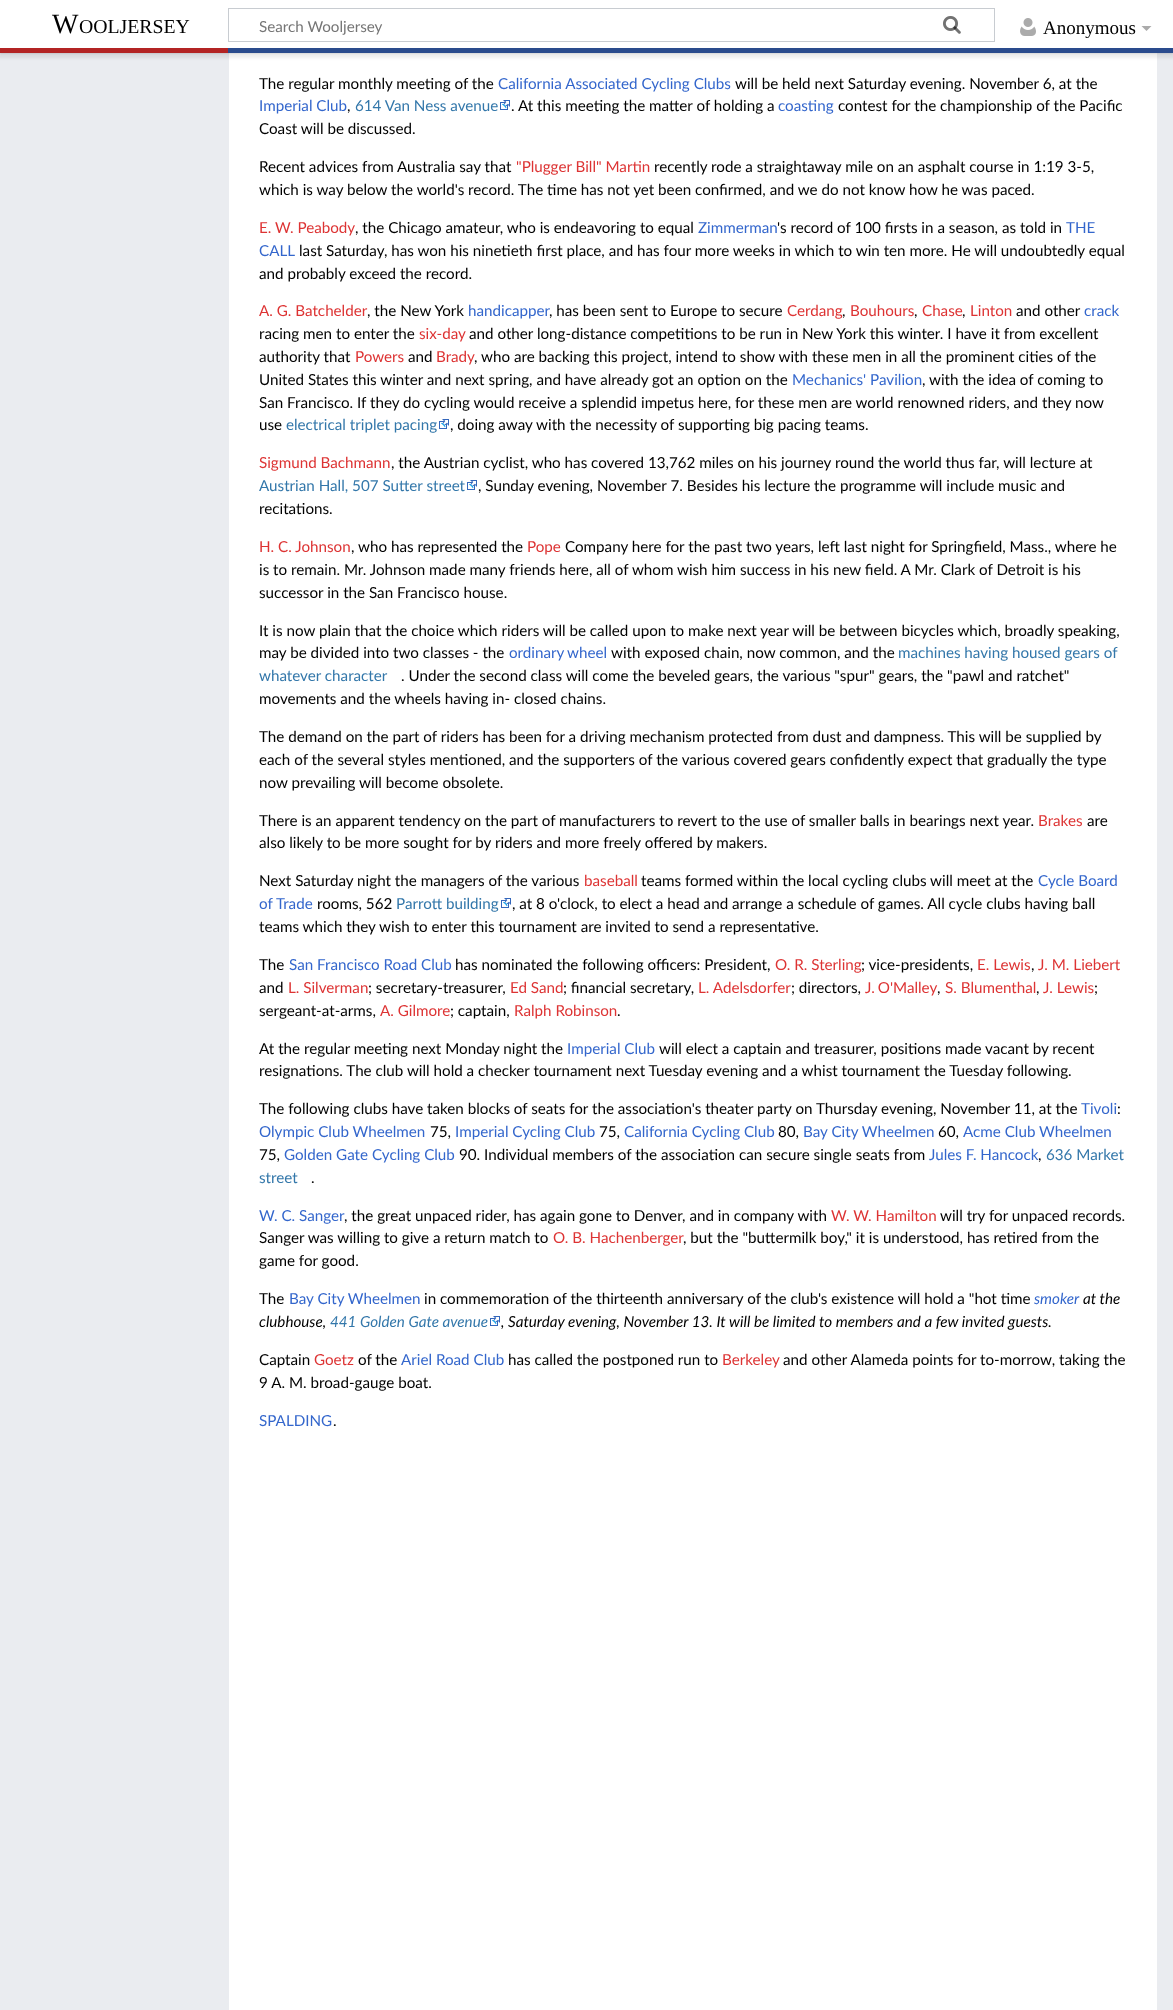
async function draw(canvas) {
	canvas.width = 1173;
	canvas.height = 2010;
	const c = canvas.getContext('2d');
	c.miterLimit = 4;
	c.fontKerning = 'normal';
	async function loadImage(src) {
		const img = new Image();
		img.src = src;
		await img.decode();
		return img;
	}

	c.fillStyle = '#eaecf0';
	c.fillRect(0, 0, 1173, 2010);
	c.fillStyle = '#fff';
	c.fillRect(229, 53, 928, 1957);
	c.fillStyle = '#00000033';
	c.filter = 'blur(1px)';
	c.beginPath();
	c.rect(0, 48, 1173, 5);
	c.fill();
	c.filter = 'none';
	c.fillStyle = '#00000012';
	c.filter = 'blur(1.5px)';
	c.beginPath();
	c.rect(-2, 49, 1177, 9);
	c.fill();
	c.filter = 'none';
	c.fillStyle = '#fff';
	c.fillRect(0, 0, 1173, 48);
	c.font = '28px Liberation Serif';
	c.fillStyle = '#000';
	c.fillText('W', 52, 33);
	c.font = '19.75px Liberation Serif';
	c.fillText('OOLJERSEY', 79, 33);
	c.strokeStyle = '#c8ccd1';
	c.strokeRect(228.5, 8.5, 766, 33);
	c.drawImage(await loadImage('img1.png'), 943, 16, 18, 18);
	c.font = '15.2px Lato';
	c.fillStyle = '#757575';
	c.fillText('Search Wooljersey', 259, 32);
	c.drawImage(await loadImage('img2.png'), 943, 16, 18, 18);
	c.drawImage(await loadImage('img3.png'), 1020, 18, 16, 18);
	c.font = '19px Liberation Serif';
	c.fillStyle = '#000';
	c.fillText('Anonymous', 1043, 34);
	c.fillStyle = '#ababab';
	c.beginPath();
	c.moveTo(1151.5, 26);
	c.lineTo(1146.5, 31);
	c.lineTo(1141.5, 26);
	c.closePath();
	c.fill();
	c.fillStyle = '#b32424';
	c.fillRect(0, 48, 228, 5);
	c.fillStyle = '#2a4b8d';
	c.fillRect(228, 48, 945, 5);
	c.font = '15.2px Lato';
	c.fillStyle = '#000';
	c.fillText('The regular monthly meeting of the', 259, 89);
	c.fillStyle = '#36c';
	c.fillText('California Associated Cycling Clubs', 498, 89);
	c.fillStyle = '#000';
	c.fillText('will be held next Saturday evening. November 6, at the', 735, 89);
	c.fillStyle = '#36c';
	c.fillText('Imperial Club', 259, 111);
	c.fillStyle = '#37a';
	c.fillText('614 Van Ness avenue', 355, 111);
	c.drawImage(await loadImage('img4.png'), 500, 100, 10, 10);
	c.fillStyle = '#000';
	c.fillText('. At this meeting the matter of holding a', 511, 111);
	c.fillStyle = '#36c';
	c.fillText('coasting', 778, 111);
	c.fillStyle = '#000';
	for (const [text, x, y] of [
		['contest for the championship of the Pacific', 838, 111],
		[',', 347, 111],
		['Coast will be discussed.', 259, 134],
		['Recent advices from Australia say that', 259, 172],
	]) {
		c.fillText(text, x, y);
	}
	c.fillStyle = '#d33';
	c.fillText('"Plugger Bill" Martin', 516, 172);
	c.fillStyle = '#000';
	c.fillText('recently rode a straightaway mile on an asphalt course in 1:19 3-5,', 654, 172);
	c.fillText('which is way below the world\'s record. The time has not yet been confirmed, and we do not know how he was paced.', 259, 195);
	c.fillStyle = '#d33';
	c.fillText('E. W. Peabody', 259, 233);
	c.fillStyle = '#000';
	c.fillText(', the Chicago amateur, who is endeavoring to equal', 355, 233);
	c.fillStyle = '#36c';
	c.fillText('Zimmerman', 698, 233);
	c.fillStyle = '#000';
	c.fillText('\'s record of 100 firsts in a season, as told in', 777, 233);
	c.fillStyle = '#36c';
	c.fillText('THE', 1066, 233);
	c.fillText('CALL', 259, 256);
	c.fillStyle = '#000';
	c.fillText('last Saturday, has won his ninetieth first place, and has four more weeks in which to win ten more. He will undoubtedly equal', 299, 256);
	c.fillText('and probably exceed the record.', 259, 279);
	c.fillStyle = '#d33';
	c.fillText('A. G. Batchelder', 259, 316);
	c.fillStyle = '#000';
	c.fillText(', the New York', 367, 316);
	c.fillStyle = '#36c';
	c.fillText('handicapper', 468, 316);
	c.fillStyle = '#000';
	c.fillText(', has been sent to Europe to secure', 549, 316);
	c.fillStyle = '#d33';
	c.fillText('Cerdang', 787, 316);
	c.fillStyle = '#000';
	c.fillText(',', 842, 316);
	c.fillStyle = '#d33';
	c.fillText('Bouhours', 850, 316);
	c.fillStyle = '#000';
	c.fillText(',', 914, 316);
	c.fillStyle = '#d33';
	c.fillText('Chase', 922, 316);
	c.fillStyle = '#000';
	c.fillText(',', 962, 316);
	c.fillStyle = '#d33';
	c.fillText('Linton', 970, 316);
	c.fillStyle = '#000';
	c.fillText('and other', 1016, 316);
	c.fillStyle = '#36c';
	c.fillText('crack', 1084, 316);
	c.fillStyle = '#000';
	c.fillText('racing men to enter the', 259, 339);
	c.fillStyle = '#d33';
	c.fillText('six-day', 419, 339);
	c.fillStyle = '#000';
	c.fillText('and other long-distance competitions to be run in New York this winter. I have it from excellent', 469, 339);
	c.fillText('authority that', 259, 362);
	c.fillStyle = '#d33';
	c.fillText('Powers', 355, 362);
	c.fillStyle = '#000';
	c.fillText('and', 408, 362);
	c.fillStyle = '#d33';
	c.fillText('Brady', 436, 362);
	c.fillStyle = '#000';
	c.fillText(', who are backing this project, intend to show with these men in all the prominent cities of the', 474, 362);
	c.fillText('United States this winter and next spring, and have already got an option on the', 259, 385);
	c.fillStyle = '#36c';
	c.fillText('Mechanics\' Pavilion', 792, 385);
	c.fillStyle = '#000';
	for (const [text, x, y] of [
		[', with the idea of coming to', 922, 385],
		['San Francisco. If they do cycling would receive a splendid impetus here, for these men are world renowned riders, and they now', 259, 408],
		['use', 259, 430],
	]) {
		c.fillText(text, x, y);
	}
	c.fillStyle = '#37a';
	c.fillText('electrical triplet pacing', 286, 430);
	c.drawImage(await loadImage('img4.png'), 439, 419, 10, 10);
	c.fillStyle = '#000';
	c.fillText(', doing away with the necessity of supporting big pacing teams.', 450, 430);
	c.fillStyle = '#d33';
	c.fillText('Sigmund Bachmann', 259, 468);
	c.fillStyle = '#000';
	c.fillText(', the Austrian cyclist, who has covered 13,762 miles on his journey round the world thus far, will lecture at', 391, 468);
	c.fillStyle = '#37a';
	c.fillText('Austrian Hall, 507 Sutter street', 259, 491);
	c.drawImage(await loadImage('img4.png'), 467, 480, 10, 10);
	c.fillStyle = '#000';
	c.fillText(', Sunday evening, November 7. Besides his lecture the programme will include music and', 478, 491);
	c.fillText('recitations.', 259, 514);
	c.fillStyle = '#d33';
	c.fillText('H. C. Johnson', 259, 552);
	c.fillStyle = '#000';
	c.fillText(', who has represented the', 351, 552);
	c.fillStyle = '#d33';
	c.fillText('Pope', 527, 552);
	c.fillStyle = '#000';
	for (const [text, x, y] of [
		['Company here for the past two years, left last night for Springfield, Mass., where he', 565, 552],
		['is to remain. Mr. Johnson made many friends here, all of whom wish him success in his new field. A Mr. Clark of Detroit is his', 259, 575],
		['successor in the San Francisco house.', 259, 598],
		['It is now plain that the choice which riders will be called upon to make next year will be between bicycles which, broadly speaking,', 259, 636],
		['may be divided into two classes - the', 259, 658],
	]) {
		c.fillText(text, x, y);
	}
	c.fillStyle = '#36c';
	c.fillText('ordinary', 509, 658);
	c.fillText('wheel', 567, 658);
	c.fillStyle = '#000';
	c.fillText('with exposed chain, now common, and the', 611, 658);
	c.fillStyle = '#37a';
	c.fillText('machines having housed gears of', 898, 658);
	c.fillText('whatever character', 259, 681);
	c.fillStyle = '#000';
	for (const [text, x, y] of [
		['. Under the second class will come the beveled gears, the various "spur" gears, the "pawl and ratchet"', 401, 681],
		['movements and the wheels having in- closed chains.', 259, 704],
		['The demand on the part of riders has been for a driving mechanism protected from dust and dampness. This will be supplied by', 259, 742],
		['each of the several styles mentioned, and the supporters of the various covered gears confidently expect that gradually the type', 259, 765],
		['now prevailing will become obsolete.', 259, 788],
		['There is an apparent tendency on the part of manufacturers to revert to the use of smaller balls in bearings next year.', 259, 826],
	]) {
		c.fillText(text, x, y);
	}
	c.fillStyle = '#d33';
	c.fillText('Brakes', 1038, 826);
	c.fillStyle = '#000';
	for (const [text, x, y] of [
		['are', 1087, 826],
		['also likely to be more sought for by riders and more freely offered by makers.', 259, 848],
		['Next Saturday night the managers of the various', 259, 886],
	]) {
		c.fillText(text, x, y);
	}
	c.fillStyle = '#d33';
	c.fillText('baseball', 584, 886);
	c.fillStyle = '#000';
	c.fillText('teams formed within the local cycling clubs will meet at the', 641, 886);
	c.fillStyle = '#36c';
	c.fillText('Cycle Board', 1038, 886);
	c.fillText('of Trade', 259, 909);
	c.fillStyle = '#000';
	c.fillText('rooms, 562', 317, 909);
	c.fillStyle = '#37a';
	c.fillText('Parrott building', 396, 909);
	c.drawImage(await loadImage('img4.png'), 501, 898, 10, 10);
	c.fillStyle = '#000';
	for (const [text, x, y] of [
		[', at 8 o\'clock, to elect a head and arrange a schedule of games. All cycle clubs having ball', 512, 909],
		['teams which they wish to enter this tournament are invited to send a representative.', 259, 932],
		['The', 259, 970],
	]) {
		c.fillText(text, x, y);
	}
	c.fillStyle = '#36c';
	c.fillText('San Francisco Road Club', 289, 970);
	c.fillStyle = '#000';
	c.fillText('has nominated the following officers: President,', 455, 970);
	c.fillStyle = '#d33';
	c.fillText('O. R. Sterling', 775, 970);
	c.fillStyle = '#000';
	c.fillText('; vice-presidents,', 861, 970);
	c.fillStyle = '#d33';
	c.fillText('E. Lewis', 977, 970);
	c.fillStyle = '#000';
	c.fillText(',', 1031, 970);
	c.fillStyle = '#d33';
	c.fillText('J. M. Liebert', 1038, 970);
	c.fillStyle = '#000';
	c.fillText('and', 259, 993);
	c.fillStyle = '#d33';
	c.fillText('L. Silverman', 288, 993);
	c.fillStyle = '#000';
	c.fillText('; secretary-treasurer,', 368, 993);
	c.fillStyle = '#d33';
	c.fillText('Ed Sand', 510, 993);
	c.fillStyle = '#000';
	c.fillText('; financial secretary,', 563, 993);
	c.fillStyle = '#d33';
	c.fillText('L. Adelsdorfer', 698, 993);
	c.fillStyle = '#000';
	c.fillText('; directors,', 791, 993);
	c.wordSpacing = '-1px';
	c.fillStyle = '#d33';
	c.fillText('J. O\'Malley', 865, 993);
	c.wordSpacing = '0px';
	c.fillStyle = '#000';
	c.fillText(',', 937, 993);
	c.fillStyle = '#d33';
	c.fillText('S. Blumenthal', 945, 993);
	c.fillStyle = '#000';
	c.fillText(',', 1036, 993);
	c.fillStyle = '#d33';
	c.fillText('J. Lewis', 1043, 993);
	c.fillStyle = '#000';
	c.fillText(';', 1094, 993);
	c.fillText('sergeant-at-arms,', 259, 1016);
	c.fillStyle = '#d33';
	c.fillText('A. Gilmore', 380, 1016);
	c.fillStyle = '#000';
	c.fillText('; captain,', 450, 1016);
	c.fillStyle = '#d33';
	c.fillText('Ralph Robinson', 514, 1016);
	c.fillStyle = '#000';
	c.fillText('.', 617, 1016);
	c.fillText('At the regular meeting next Monday night the', 259, 1054);
	c.fillStyle = '#36c';
	c.fillText('Imperial Club', 567, 1054);
	c.fillStyle = '#000';
	for (const [text, x, y] of [
		['will elect a captain and treasurer, positions made vacant by recent', 659, 1054],
		['resignations. The club will hold a checker tournament next Tuesday evening and a whist tournament the Tuesday following.', 259, 1076],
		['The following clubs have taken blocks of seats for the association\'s theater party on Thursday evening, November 11, at the', 259, 1114],
	]) {
		c.fillText(text, x, y);
	}
	c.fillStyle = '#36c';
	c.fillText('Tivoli', 1081, 1114);
	c.fillStyle = '#000';
	c.fillText(':', 1117, 1114);
	c.fillStyle = '#36c';
	c.fillText('Olympic Club Wheelmen', 259, 1137);
	c.fillStyle = '#000';
	c.fillText('75,', 430, 1137);
	c.fillStyle = '#36c';
	c.fillText('Imperial Cycling Club', 455, 1137);
	c.fillStyle = '#000';
	c.fillText('75,', 599, 1137);
	c.fillStyle = '#36c';
	c.fillText('California Cycling Club', 624, 1137);
	c.fillStyle = '#000';
	c.fillText('80,', 778, 1137);
	c.fillStyle = '#36c';
	c.fillText('Bay City Wheelmen', 803, 1137);
	c.fillStyle = '#000';
	c.fillText('60,', 938, 1137);
	c.fillStyle = '#36c';
	c.fillText('Acme Club Wheelmen', 963, 1137);
	c.fillStyle = '#000';
	c.fillText('75,', 259, 1160);
	c.fillStyle = '#36c';
	c.fillText('Golden Gate Cycling Club', 284, 1160);
	c.fillStyle = '#000';
	c.fillText('90. Individual members of the association can secure single seats from', 459, 1160);
	c.fillStyle = '#36c';
	c.fillText('Jules F. Hancock', 929, 1160);
	c.fillStyle = '#000';
	c.fillText(',', 1038, 1160);
	c.fillStyle = '#37a';
	c.fillText('636 Market', 1046, 1160);
	c.fillText('street', 259, 1183);
	c.fillStyle = '#000';
	c.fillText('.', 311, 1183);
	c.fillStyle = '#36c';
	c.fillText('W. C. Sanger', 259, 1221);
	c.fillStyle = '#000';
	c.fillText(', the great unpaced rider, has again gone to Denver, and in company with', 344, 1221);
	c.fillStyle = '#d33';
	c.fillText('W. W. Hamilton', 831, 1221);
	c.fillStyle = '#000';
	c.fillText('will try for unpaced records.', 940, 1221);
	c.fillText('Sanger was willing to give a return match to', 259, 1243);
	c.fillStyle = '#d33';
	c.fillText('O. B. Hachenberger', 553, 1243);
	c.fillStyle = '#000';
	for (const [text, x, y] of [
		[', but the "buttermilk boy," it is understood, has retired from the', 683, 1243],
		['game for good.', 259, 1266],
		['The', 259, 1304],
	]) {
		c.fillText(text, x, y);
	}
	c.fillStyle = '#36c';
	c.fillText('Bay City Wheelmen', 289, 1304);
	c.fillStyle = '#000';
	c.fillText('in commemoration of the thirteenth anniversary of the club\'s existence will hold a "hot time', 424, 1304);
	c.font = 'italic 15.2px Lato';
	c.fillStyle = '#36c';
	c.fillText('smoker', 1034, 1304);
	c.fillStyle = '#000';
	c.fillText('at the', 1083, 1304);
	c.fillText('clubhouse,', 259, 1327);
	c.fillStyle = '#37a';
	c.fillText('441 Golden Gate avenue', 330, 1327);
	c.drawImage(await loadImage('img4.png'), 490, 1316, 10, 10);
	c.fillStyle = '#000';
	c.fillText(', Saturday evening, November 13. It will be limited to members and a few invited guests.', 501, 1327);
	c.font = '15.2px Lato';
	c.fillText('Captain', 259, 1365);
	c.fillStyle = '#d33';
	c.fillText('Goetz', 314, 1365);
	c.fillStyle = '#000';
	c.fillText('of the', 358, 1365);
	c.fillStyle = '#36c';
	c.fillText('Ariel Road Club', 401, 1365);
	c.fillStyle = '#000';
	c.fillText('has called the postponed run to', 508, 1365);
	c.fillStyle = '#d33';
	c.fillText('Berkeley', 722, 1365);
	c.fillStyle = '#000';
	c.fillText('and other Alameda points for to-morrow, taking the', 783, 1365);
	c.fillText('9 A. M. broad-gauge boat.', 259, 1388);
	c.fillStyle = '#36c';
	c.fillText('SPALDING', 259, 1426);
	c.fillStyle = '#000';
	c.fillText('.', 333, 1426);
}

draw(document.querySelector('canvas'));
